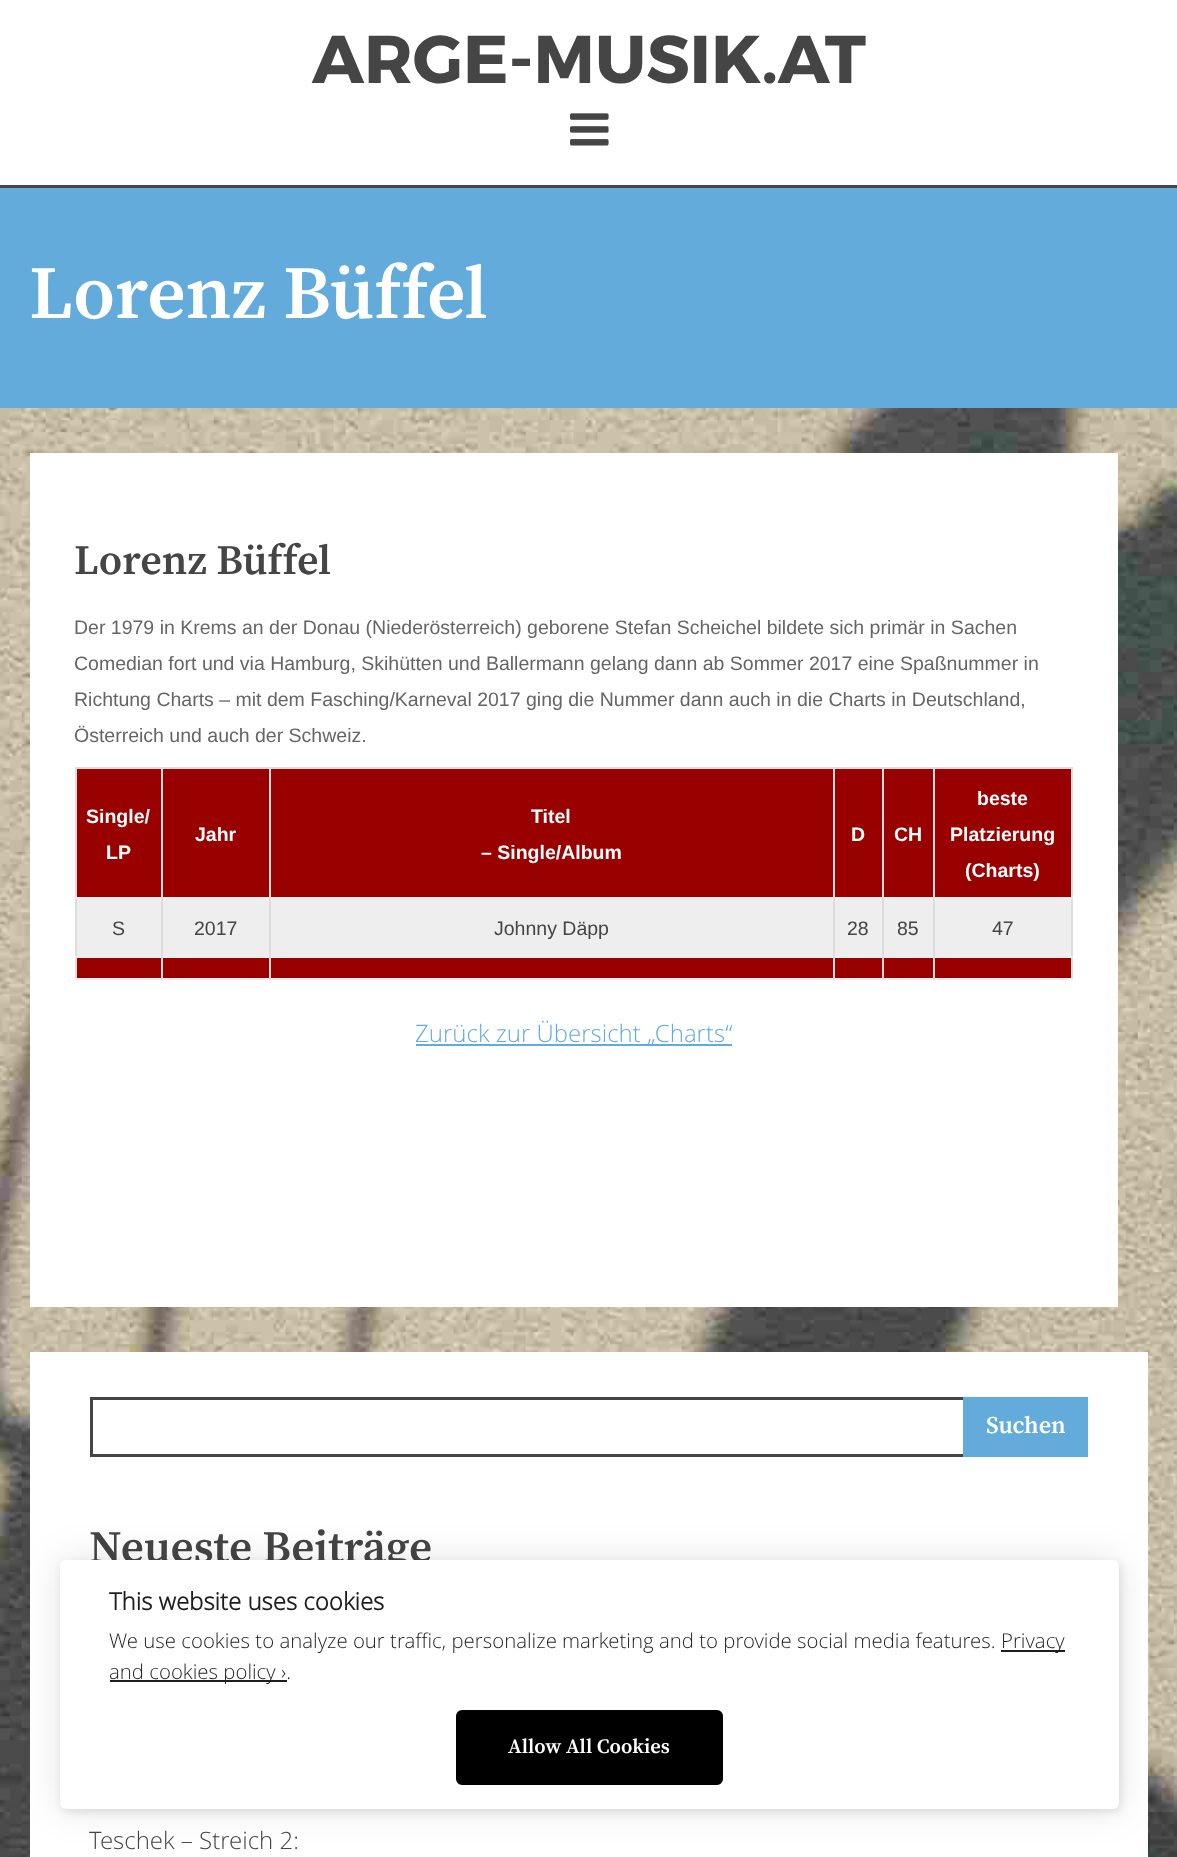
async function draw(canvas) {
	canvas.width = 1177;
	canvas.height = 1857;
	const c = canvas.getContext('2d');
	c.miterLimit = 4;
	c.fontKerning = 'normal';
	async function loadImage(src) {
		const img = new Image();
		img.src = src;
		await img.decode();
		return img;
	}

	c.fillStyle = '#fff';
	c.fillRect(0, 0, 1177, 1857);
	c.drawImage(await loadImage('img1.png'), 0, 408, 1177, 1449);
	c.fillStyle = '#454545';
	c.fillRect(0, 185, 1177, 3);
	c.font = 'bold 67.5px Montserrat';
	c.fillText('ARGE-MUSIK.AT', 312, 83);
	c.drawImage(await loadImage('img2.png'), 570, 113, 39, 33);
	c.fillStyle = '#62abdb';
	c.fillRect(0, 188, 1177, 220);
	c.font = '600 75px Source Serif Pro';
	c.fillStyle = '#fff';
	c.fillText('Lorenz Büffel', 29, 318);
	c.fillRect(30, 453, 1088, 854);
	c.font = '600 42px Source Serif Pro';
	c.fillStyle = '#454545';
	c.fillText('Lorenz Büffel', 74, 574);
	c.font = '19.5px Liberation Sans';
	c.fillStyle = '#656565';
	for (const [text, x, y] of [
		['Der 1979 in Krems an der Donau (Niederösterreich) geborene Stefan Scheichel bildete sich primär in Sachen', 74, 634],
		['Comedian fort und via Hamburg, Skihütten und Ballermann gelang dann ab Sommer 2017 eine Spaßnummer in', 74, 670],
		['Richtung Charts – mit dem Fasching/Karneval 2017 ging die Nummer dann auch in die Charts in Deutschland,', 74, 706],
		['Österreich und auch der Schweiz.', 74, 742],
	]) {
		c.fillText(text, x, y);
	}
	for (const [x, y, w, h, color] of [
		[75, 767, 998, 2, '#ddd'],
		[1071, 767, 2, 213, '#ddd'],
		[75, 767, 2, 213, '#ddd'],
		[77, 958, 994, 20, '#900'],
		[75, 978, 998, 2, '#eaedf2'],
		[77, 769, 994, 128, '#900'],
		[75, 897, 998, 2, '#eaedf2'],
		[77, 899, 994, 57, '#eee'],
		[75, 956, 998, 2, '#eaedf2'],
		[161, 767, 2, 213, '#ddd'],
		[269, 767, 2, 213, '#ddd'],
		[833, 767, 2, 213, '#ddd'],
		[882, 767, 2, 213, '#ddd'],
		[933, 767, 2, 213, '#ddd'],
	]) {
		c.fillStyle = color;
		c.fillRect(x, y, w, h);
	}
	c.font = 'bold 19.5px Liberation Sans';
	c.fillStyle = '#fff';
	for (const [text, x, y] of [
		['Single/', 86, 823],
		['LP', 106, 859],
		['Jahr', 195, 841],
		['Titel', 531, 823],
		['– Single/Album', 481, 859],
		['D', 851, 841],
		['CH', 894, 841],
		['beste', 977, 805],
		['Platzierung', 950, 841],
		['(Charts)', 965, 877],
	]) {
		c.fillText(text, x, y);
	}
	c.font = '19.5px Liberation Sans';
	c.fillStyle = '#454545';
	for (const [text, x, y] of [
		['S', 112, 935],
		['2017', 194, 935],
		['Johnny Däpp', 494, 935],
		['28', 847, 935],
		['85', 897, 935],
		['47', 992, 935],
	]) {
		c.fillText(text, x, y);
	}
	c.fillStyle = '#62abdb';
	c.fillRect(416, 1044, 316, 2);
	c.font = '300 24px Open Sans';
	c.fillText('Zurück zur Übersicht „Charts“', 415, 1042);
	c.fillStyle = '#fff';
	c.fillRect(30, 1352, 1118, 505);
	c.strokeStyle = '#454545';
	c.lineWidth = 3;
	c.strokeRect(91.5, 1398.5, 995, 57);
	c.fillStyle = '#62abdb';
	c.fillRect(963, 1397, 125, 60);
	c.font = '600 24px Source Serif Pro';
	c.fillStyle = '#fff';
	c.fillText('Suchen', 986, 1433);
	c.font = '600 45px Source Serif Pro';
	c.fillStyle = '#454545';
	c.fillText('Neueste Beiträge', 89, 1562);
	c.font = '300 24px Open Sans';
	c.fillText('Teschek – Streich 2:', 89, 1849);
	c.fillStyle = '#0000001a';
	c.filter = 'blur(4px)';
	c.beginPath();
	c.roundRect(62, 1563, 1059, 249, 6);
	c.fill();
	c.filter = 'none';
	c.filter = 'blur(19px)';
	c.beginPath();
	c.roundRect(60, 1560, 1059, 249, 6);
	c.fill();
	c.filter = 'none';
	c.fillStyle = '#fff';
	c.beginPath();
	c.roundRect(60, 1560, 1059, 249, 6);
	c.fill();
	c.font = 'bold 24px Open Sans';
	c.fillStyle = '#1e1e1e';
	c.fillText('This website uses cookies', 109, 1610);
	c.font = '300 20.4px Open Sans';
	c.fillText('We use cookies to analyze our traffic, personalize marketing and to provide social media features.', 109, 1648);
	c.fillRect(1001, 1650, 64, 2);
	c.fillText('Privacy', 1001, 1648);
	c.fillRect(110, 1680, 177, 2);
	c.fillText('and cookies policy ›.', 109, 1679);
	c.fillStyle = '#000';
	c.beginPath();
	c.roundRect(457, 1711, 265, 73, 5);
	c.fill();
	c.strokeStyle = '#000';
	c.lineWidth = 2;
	c.stroke();
	c.font = '600 20.4px Source Serif Pro';
	c.fillStyle = '#fff';
	c.fillText('Allow All Cookies', 508, 1753);
}

draw(document.querySelector('canvas'));
